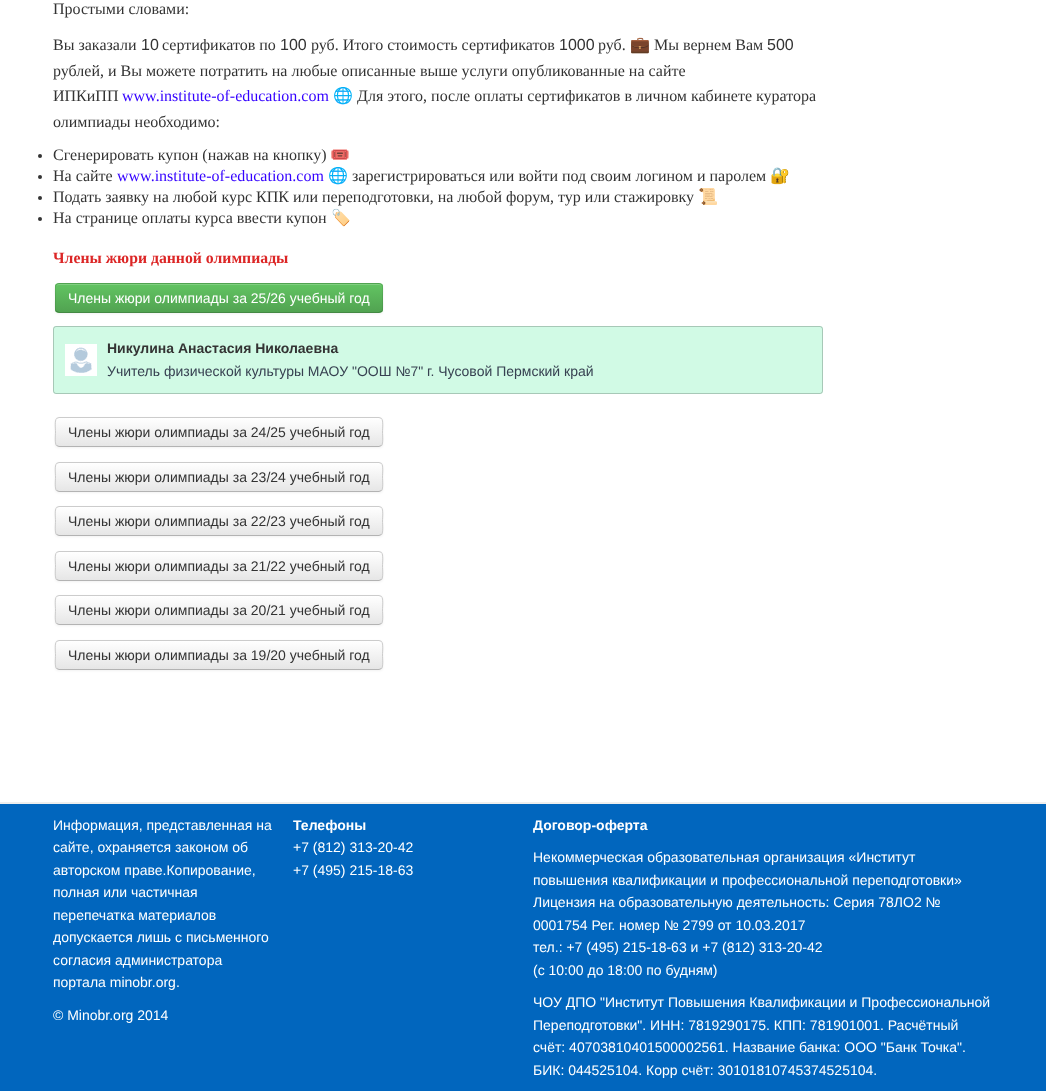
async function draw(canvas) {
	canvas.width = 1046;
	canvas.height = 1091;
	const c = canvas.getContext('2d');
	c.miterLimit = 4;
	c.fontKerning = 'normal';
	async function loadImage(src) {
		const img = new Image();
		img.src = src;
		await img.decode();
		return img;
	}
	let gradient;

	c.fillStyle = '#fff';
	c.fillRect(0, 0, 1046, 1091);
	c.font = '16px Liberation Serif';
	c.fillStyle = '#333';
	c.fillText('Простыми словами:', 53, 14);
	c.fillText('Вы заказали', 53, 50);
	c.font = '16px Liberation Sans';
	c.fillText('10', 141, 50);
	c.font = '16px Liberation Serif';
	c.fillText('сертификатов по', 162, 50);
	c.font = '16px Liberation Sans';
	c.fillText('100', 280, 50);
	c.font = '16px Liberation Serif';
	c.fillText('руб. Итого стоимость сертификатов', 311, 50);
	c.font = '16px Liberation Sans';
	c.fillText('1000', 559, 50);
	c.font = '16px Liberation Serif';
	c.fillText('руб.', 598, 50);
	c.font = '16px Noto Color Emoji';
	c.fillText('💼', 630, 50);
	c.font = '16px Liberation Serif';
	c.fillText('Мы вернем Вам', 654, 50);
	c.font = '16px Liberation Sans';
	c.fillText('500', 767, 50);
	c.font = '16px Liberation Serif';
	c.fillText('рублей, и Вы можете потратить на любые описанные выше услуги опубликованные на сайте', 53, 76);
	c.fillText('ИПКиПП', 53, 101);
	c.fillStyle = '#30f';
	c.fillText('www.institute-of-education.com', 122, 101);
	c.font = '16px Noto Color Emoji';
	c.fillStyle = '#333';
	c.fillText('🌐', 333, 101);
	c.font = '16px Liberation Serif';
	c.fillText('Для этого, после оплаты сертификатов в личном кабинете куратора', 357, 101);
	c.fillText('олимпиады необходимо:', 53, 127);
	c.beginPath();
	c.arc(40, 156, 2, 0, 2 * Math.PI);
	c.fill();
	c.fillText('Сгенерировать купон (нажав на кнопку)', 53, 160);
	c.font = '16px Noto Color Emoji';
	c.fillText('🎟️', 330, 160);
	c.beginPath();
	c.arc(40, 177, 2, 0, 2 * Math.PI);
	c.fill();
	c.font = '16px Liberation Serif';
	c.fillText('На сайте', 53, 181);
	c.fillStyle = '#30f';
	c.fillText('www.institute-of-education.com', 117, 181);
	c.font = '16px Noto Color Emoji';
	c.fillStyle = '#333';
	c.fillText('🌐', 328, 181);
	c.font = '16px Liberation Serif';
	c.fillText('зарегистрироваться или войти под своим логином и паролем', 352, 181);
	c.font = '16px Noto Color Emoji';
	c.fillText('🔐', 770, 181);
	c.beginPath();
	c.arc(40, 198, 2, 0, 2 * Math.PI);
	c.fill();
	c.font = '16px Liberation Serif';
	c.fillText('Подать заявку на любой курс КПК или переподготовки, на любой форум, тур или стажировку', 53, 202);
	c.font = '16px Noto Color Emoji';
	c.fillText('📜', 698, 202);
	c.beginPath();
	c.arc(40, 219, 2, 0, 2 * Math.PI);
	c.fill();
	c.font = '16px Liberation Serif';
	c.fillText('На странице оплаты курса ввести купон', 53, 223);
	c.font = '16px Noto Color Emoji';
	c.fillText('🏷️', 331, 223);
	c.font = 'bold 15.75px Liberation Serif';
	c.fillStyle = '#dc2626';
	c.fillText('Члены жюри данной олимпиады', 53, 263);
	c.fillStyle = '#0000000d';
	c.filter = 'blur(1px)';
	c.beginPath();
	c.roundRect(55, 284, 328, 30, 4);
	c.fill();
	c.filter = 'none';
	c.fillStyle = '#5bb75b';
	c.beginPath();
	c.roundRect(55, 283, 328, 30, 4);
	c.fill();
	c.save();
	c.beginPath();
	c.roundRect(55, 283, 328, 30, 4);
	c.clip();
	gradient = c.createLinearGradient(219, 284, 219, 312);
	gradient.addColorStop(0, '#62c462');
	gradient.addColorStop(1, '#51a351');
	c.fillStyle = gradient;
	c.fillRect(55, 284, 328, 28);
	c.restore();
	c.fillStyle = '#81cf81';
	c.beginPath();
	c.moveTo(59, 285);
	c.lineTo(379, 285);
	c.bezierCurveTo(381, 285, 382, 286, 382, 288);
	c.bezierCurveTo(382, 286, 381, 284, 379, 284);
	c.lineTo(59, 284);
	c.bezierCurveTo(57, 284, 56, 286, 56, 288);
	c.bezierCurveTo(56, 286, 57, 285, 59, 285);
	c.closePath();
	c.fill();
	c.beginPath();
	c.moveTo(381.5, 311.5);
	c.lineTo(379, 312.5);
	c.lineTo(59, 312.5);
	c.lineTo(56.5, 311.5);
	c.strokeStyle = '#00000040';
	c.stroke();
	c.beginPath();
	c.moveTo(56.5, 311.5);
	c.bezierCurveTo(54.5, 309.5, 55.5, 301, 55.5, 298);
	c.bezierCurveTo(55.5, 295, 54.5, 286.5, 56.5, 284.5);
	c.lineTo(59, 283.5);
	c.lineTo(379, 283.5);
	c.lineTo(381.5, 284.5);
	c.bezierCurveTo(383.5, 286.5, 382.5, 295, 382.5, 298);
	c.bezierCurveTo(382.5, 301, 383.5, 309.5, 381.5, 311.5);
	c.strokeStyle = '#0000001a';
	c.stroke();
	c.font = '14px Liberation Sans';
	c.fillStyle = '#fff';
	c.fillText('Члены жюри олимпиады за 25/26 учебный год', 68, 303);
	c.fillStyle = '#d1fae5';
	c.beginPath();
	c.roundRect(53, 326, 770, 68, 3);
	c.fill();
	c.beginPath();
	c.roundRect(53.5, 326.5, 769, 67, 2.5);
	c.strokeStyle = '#00000033';
	c.stroke();
	c.drawImage(await loadImage('img1.png'), 65, 344, 32, 32);
	c.font = 'bold 14px Liberation Sans';
	c.fillStyle = '#333';
	c.fillText('Никулина Анастасия Николаевна', 107, 353);
	c.font = '14px Liberation Sans';
	c.fillStyle = '#374151';
	c.fillText('Учитель физической культуры МАОУ "ООШ №7" г. Чусовой Пермский край', 107, 376);
	c.fillStyle = '#0000000d';
	c.filter = 'blur(1px)';
	c.beginPath();
	c.roundRect(55, 418, 328, 30, 4);
	c.fill();
	c.filter = 'none';
	c.fillStyle = '#f5f5f5';
	c.beginPath();
	c.roundRect(55, 417, 328, 30, 4);
	c.fill();
	c.save();
	c.beginPath();
	c.roundRect(55, 417, 328, 30, 4);
	c.clip();
	gradient = c.createLinearGradient(219, 418, 219, 446);
	gradient.addColorStop(0, '#fff');
	gradient.addColorStop(1, '#e6e6e6');
	c.fillStyle = gradient;
	c.fillRect(55, 418, 328, 28);
	c.restore();
	c.beginPath();
	c.moveTo(381.5, 445.5);
	c.lineTo(379, 446.5);
	c.lineTo(59, 446.5);
	c.lineTo(56.5, 445.5);
	c.strokeStyle = '#b3b3b3';
	c.stroke();
	c.beginPath();
	c.moveTo(56.5, 445.5);
	c.bezierCurveTo(54.5, 443.5, 55.5, 435, 55.5, 432);
	c.bezierCurveTo(55.5, 429, 54.5, 420.5, 56.5, 418.5);
	c.lineTo(59, 417.5);
	c.lineTo(379, 417.5);
	c.lineTo(381.5, 418.5);
	c.bezierCurveTo(383.5, 420.5, 382.5, 429, 382.5, 432);
	c.bezierCurveTo(382.5, 435, 383.5, 443.5, 381.5, 445.5);
	c.strokeStyle = '#ccc';
	c.stroke();
	c.fillStyle = '#333';
	c.fillText('Члены жюри олимпиады за 24/25 учебный год', 68, 437);
	c.fillStyle = '#0000000d';
	c.filter = 'blur(1px)';
	c.beginPath();
	c.roundRect(55, 463, 328, 30, 4);
	c.fill();
	c.filter = 'none';
	c.fillStyle = '#f5f5f5';
	c.beginPath();
	c.roundRect(55, 462, 328, 30, 4);
	c.fill();
	c.save();
	c.beginPath();
	c.roundRect(55, 462, 328, 30, 4);
	c.clip();
	gradient = c.createLinearGradient(219, 463, 219, 491);
	gradient.addColorStop(0, '#fff');
	gradient.addColorStop(1, '#e6e6e6');
	c.fillStyle = gradient;
	c.fillRect(55, 463, 328, 28);
	c.restore();
	c.beginPath();
	c.moveTo(381.5, 490.5);
	c.lineTo(379, 491.5);
	c.lineTo(59, 491.5);
	c.lineTo(56.5, 490.5);
	c.strokeStyle = '#b3b3b3';
	c.stroke();
	c.beginPath();
	c.moveTo(56.5, 490.5);
	c.bezierCurveTo(54.5, 488.5, 55.5, 480, 55.5, 477);
	c.bezierCurveTo(55.5, 474, 54.5, 465.5, 56.5, 463.5);
	c.lineTo(59, 462.5);
	c.lineTo(379, 462.5);
	c.lineTo(381.5, 463.5);
	c.bezierCurveTo(383.5, 465.5, 382.5, 474, 382.5, 477);
	c.bezierCurveTo(382.5, 480, 383.5, 488.5, 381.5, 490.5);
	c.strokeStyle = '#ccc';
	c.stroke();
	c.fillStyle = '#333';
	c.fillText('Члены жюри олимпиады за 23/24 учебный год', 68, 482);
	c.fillStyle = '#0000000d';
	c.filter = 'blur(1px)';
	c.beginPath();
	c.roundRect(55, 507, 328, 30, 4);
	c.fill();
	c.filter = 'none';
	c.fillStyle = '#f5f5f5';
	c.beginPath();
	c.roundRect(55, 506, 328, 30, 4);
	c.fill();
	c.save();
	c.beginPath();
	c.roundRect(55, 506, 328, 30, 4);
	c.clip();
	gradient = c.createLinearGradient(219, 507, 219, 535);
	gradient.addColorStop(0, '#fff');
	gradient.addColorStop(1, '#e6e6e6');
	c.fillStyle = gradient;
	c.fillRect(55, 507, 328, 28);
	c.restore();
	c.beginPath();
	c.moveTo(381.5, 534.5);
	c.lineTo(379, 535.5);
	c.lineTo(59, 535.5);
	c.lineTo(56.5, 534.5);
	c.strokeStyle = '#b3b3b3';
	c.stroke();
	c.beginPath();
	c.moveTo(56.5, 534.5);
	c.bezierCurveTo(54.5, 532.5, 55.5, 524, 55.5, 521);
	c.bezierCurveTo(55.5, 518, 54.5, 509.5, 56.5, 507.5);
	c.lineTo(59, 506.5);
	c.lineTo(379, 506.5);
	c.lineTo(381.5, 507.5);
	c.bezierCurveTo(383.5, 509.5, 382.5, 518, 382.5, 521);
	c.bezierCurveTo(382.5, 524, 383.5, 532.5, 381.5, 534.5);
	c.strokeStyle = '#ccc';
	c.stroke();
	c.fillStyle = '#333';
	c.fillText('Члены жюри олимпиады за 22/23 учебный год', 68, 526);
	c.fillStyle = '#0000000d';
	c.filter = 'blur(1px)';
	c.beginPath();
	c.roundRect(55, 552, 328, 30, 4);
	c.fill();
	c.filter = 'none';
	c.fillStyle = '#f5f5f5';
	c.beginPath();
	c.roundRect(55, 551, 328, 30, 4);
	c.fill();
	c.save();
	c.beginPath();
	c.roundRect(55, 551, 328, 30, 4);
	c.clip();
	gradient = c.createLinearGradient(219, 552, 219, 580);
	gradient.addColorStop(0, '#fff');
	gradient.addColorStop(1, '#e6e6e6');
	c.fillStyle = gradient;
	c.fillRect(55, 552, 328, 28);
	c.restore();
	c.beginPath();
	c.moveTo(381.5, 579.5);
	c.lineTo(379, 580.5);
	c.lineTo(59, 580.5);
	c.lineTo(56.5, 579.5);
	c.strokeStyle = '#b3b3b3';
	c.stroke();
	c.beginPath();
	c.moveTo(56.5, 579.5);
	c.bezierCurveTo(54.5, 577.5, 55.5, 569, 55.5, 566);
	c.bezierCurveTo(55.5, 563, 54.5, 554.5, 56.5, 552.5);
	c.lineTo(59, 551.5);
	c.lineTo(379, 551.5);
	c.lineTo(381.5, 552.5);
	c.bezierCurveTo(383.5, 554.5, 382.5, 563, 382.5, 566);
	c.bezierCurveTo(382.5, 569, 383.5, 577.5, 381.5, 579.5);
	c.strokeStyle = '#ccc';
	c.stroke();
	c.fillStyle = '#333';
	c.fillText('Члены жюри олимпиады за 21/22 учебный год', 68, 571);
	c.fillStyle = '#0000000d';
	c.filter = 'blur(1px)';
	c.beginPath();
	c.roundRect(55, 596, 328, 30, 4);
	c.fill();
	c.filter = 'none';
	c.fillStyle = '#f5f5f5';
	c.beginPath();
	c.roundRect(55, 595, 328, 30, 4);
	c.fill();
	c.save();
	c.beginPath();
	c.roundRect(55, 595, 328, 30, 4);
	c.clip();
	gradient = c.createLinearGradient(219, 596, 219, 624);
	gradient.addColorStop(0, '#fff');
	gradient.addColorStop(1, '#e6e6e6');
	c.fillStyle = gradient;
	c.fillRect(55, 596, 328, 28);
	c.restore();
	c.beginPath();
	c.moveTo(381.5, 623.5);
	c.lineTo(379, 624.5);
	c.lineTo(59, 624.5);
	c.lineTo(56.5, 623.5);
	c.strokeStyle = '#b3b3b3';
	c.stroke();
	c.beginPath();
	c.moveTo(56.5, 623.5);
	c.bezierCurveTo(54.5, 621.5, 55.5, 613, 55.5, 610);
	c.bezierCurveTo(55.5, 607, 54.5, 598.5, 56.5, 596.5);
	c.lineTo(59, 595.5);
	c.lineTo(379, 595.5);
	c.lineTo(381.5, 596.5);
	c.bezierCurveTo(383.5, 598.5, 382.5, 607, 382.5, 610);
	c.bezierCurveTo(382.5, 613, 383.5, 621.5, 381.5, 623.5);
	c.strokeStyle = '#ccc';
	c.stroke();
	c.fillStyle = '#333';
	c.fillText('Члены жюри олимпиады за 20/21 учебный год', 68, 615);
	c.fillStyle = '#0000000d';
	c.filter = 'blur(1px)';
	c.beginPath();
	c.roundRect(55, 641, 328, 30, 4);
	c.fill();
	c.filter = 'none';
	c.fillStyle = '#f5f5f5';
	c.beginPath();
	c.roundRect(55, 640, 328, 30, 4);
	c.fill();
	c.save();
	c.beginPath();
	c.roundRect(55, 640, 328, 30, 4);
	c.clip();
	gradient = c.createLinearGradient(219, 641, 219, 669);
	gradient.addColorStop(0, '#fff');
	gradient.addColorStop(1, '#e6e6e6');
	c.fillStyle = gradient;
	c.fillRect(55, 641, 328, 28);
	c.restore();
	c.beginPath();
	c.moveTo(381.5, 668.5);
	c.lineTo(379, 669.5);
	c.lineTo(59, 669.5);
	c.lineTo(56.5, 668.5);
	c.strokeStyle = '#b3b3b3';
	c.stroke();
	c.beginPath();
	c.moveTo(56.5, 668.5);
	c.bezierCurveTo(54.5, 666.5, 55.5, 658, 55.5, 655);
	c.bezierCurveTo(55.5, 652, 54.5, 643.5, 56.5, 641.5);
	c.lineTo(59, 640.5);
	c.lineTo(379, 640.5);
	c.lineTo(381.5, 641.5);
	c.bezierCurveTo(383.5, 643.5, 382.5, 652, 382.5, 655);
	c.bezierCurveTo(382.5, 658, 383.5, 666.5, 381.5, 668.5);
	c.strokeStyle = '#ccc';
	c.stroke();
	c.fillStyle = '#333';
	c.fillText('Члены жюри олимпиады за 19/20 учебный год', 68, 660);
	c.fillStyle = '#0166be';
	c.fillRect(0, 804, 1046, 287);
	c.fillStyle = '#eee';
	c.fillRect(0, 802, 1046, 2);
	c.fillStyle = '#fff';
	for (const [text, x, y] of [
		['Информация, представленная на', 53, 830],
		['сайте, охраняется законом об', 53, 852],
		['авторском праве.Копирование,', 53, 875],
		['полная или частичная', 53, 897],
		['перепечатка материалов', 53, 920],
		['допускается лишь с письменного', 53, 942],
		['согласия администратора', 53, 965],
		['портала minobr.org.', 53, 987],
		['© Minobr.org 2014', 53, 1020],
	]) {
		c.fillText(text, x, y);
	}
	c.font = 'bold 14px Liberation Sans';
	c.fillText('Телефоны', 293, 830);
	c.font = '14px Liberation Sans';
	c.fillText('+7 (812) 313-20-42', 293, 852);
	c.fillText('+7 (495) 215-18-63', 293, 875);
	c.font = 'bold 14px Liberation Sans';
	c.fillText('Договор-оферта', 533, 830);
	c.font = '14px Liberation Sans';
	for (const [text, x, y] of [
		['Некоммерческая образовательная организация «Институт', 533, 862],
		['повышения квалификации и профессиональной переподготовки»', 533, 885],
		['Лицензия на образовательную деятельность: Серия 78ЛО2 №', 533, 907],
		['0001754 Рег. номер № 2799 от 10.03.2017', 533, 930],
		['тел.: +7 (495) 215-18-63 и +7 (812) 313-20-42', 533, 952],
		['(с 10:00 до 18:00 по будням)', 533, 975],
		['ЧОУ ДПО "Институт Повышения Квалификации и Профессиональной', 533, 1007],
		['Переподготовки". ИНН: 7819290175. КПП: 781901001. Расчётный', 533, 1030],
		['счёт: 40703810401500002561. Название банка: ООО "Банк Точка".', 533, 1052],
		['БИК: 044525104. Корр счёт: 30101810745374525104.', 533, 1075],
	]) {
		c.fillText(text, x, y);
	}
}

draw(document.querySelector('canvas'));
